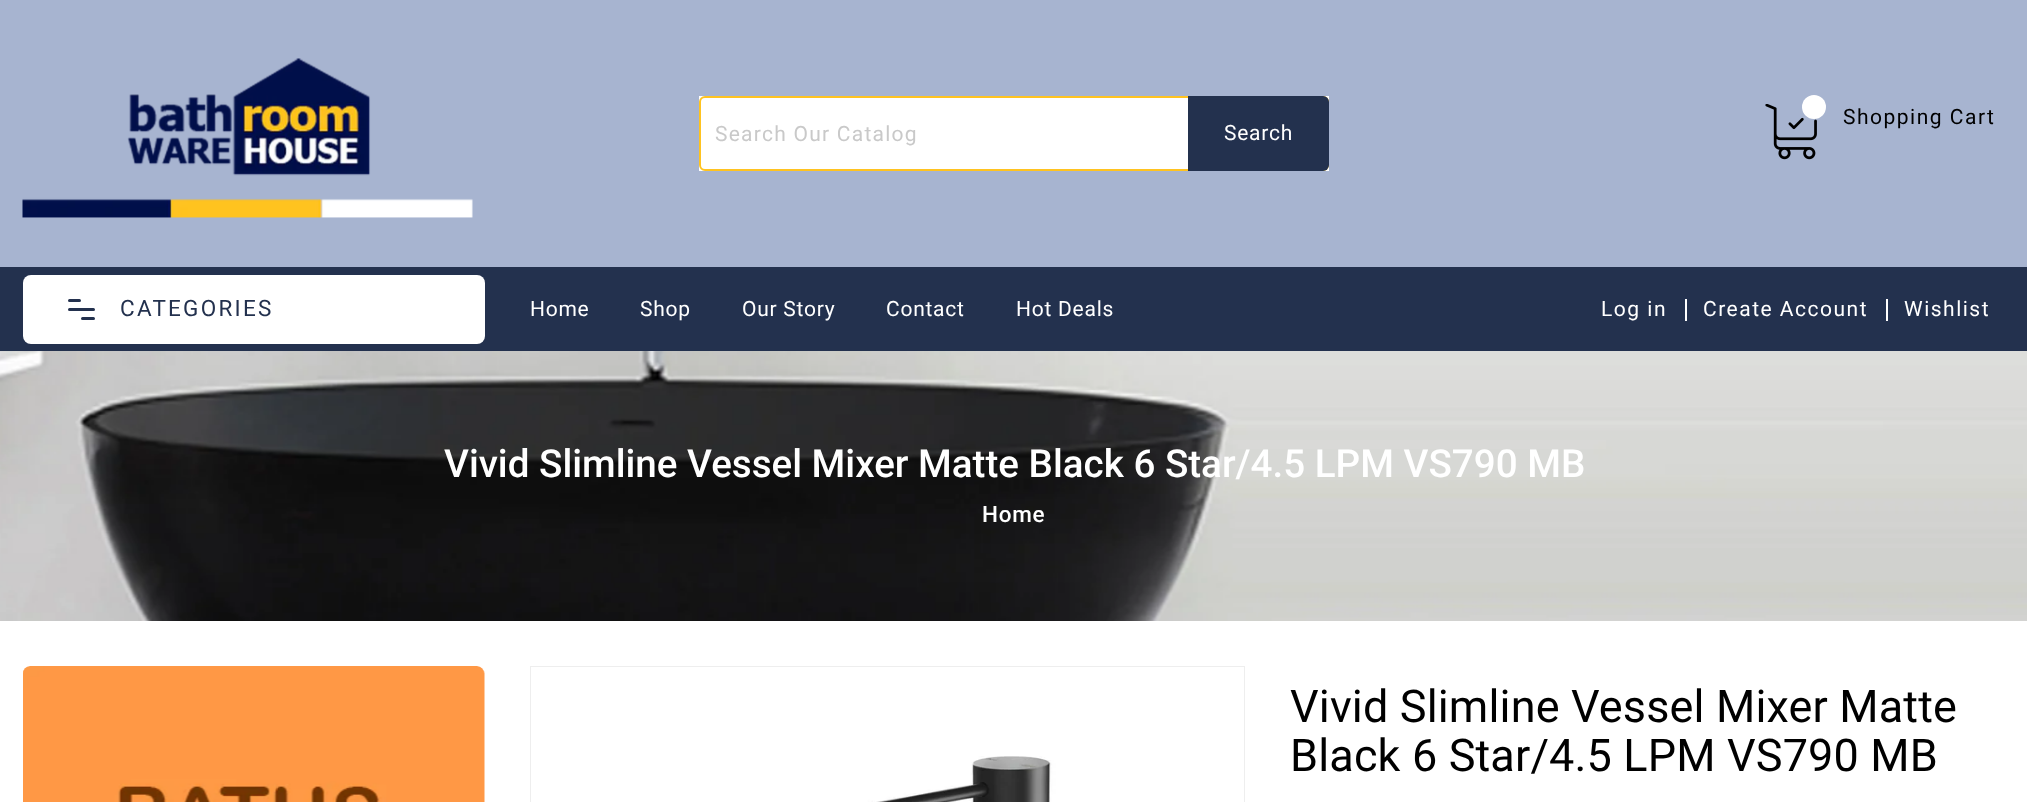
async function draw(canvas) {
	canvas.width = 2027;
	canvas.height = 802;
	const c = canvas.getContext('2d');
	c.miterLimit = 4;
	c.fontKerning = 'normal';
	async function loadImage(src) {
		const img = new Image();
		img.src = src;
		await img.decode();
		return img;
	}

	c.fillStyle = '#fff';
	c.fillRect(0, 0, 2027, 802);
	c.fillStyle = '#a7b4d0';
	c.fillRect(0, 0, 2027, 267);
	c.drawImage(await loadImage('img1.png'), 22, 58, 451, 160);
	c.drawImage(await loadImage('img2.png'), 1765, 104, 52, 56);
	c.fillStyle = '#fff';
	c.beginPath();
	c.arc(1814, 107, 12, 0, 2 * Math.PI);
	c.fill();
	c.letterSpacing = '1.5px';
	c.font = '21px Roboto';
	c.fillStyle = '#000';
	c.fillText('Shopping Cart', 1843, 124);
	c.fillStyle = '#fff';
	c.fillRect(699, 96, 630, 75);
	c.beginPath();
	c.roundRect(700, 97, 628, 73, 5);
	c.strokeStyle = '#ffc320';
	c.lineWidth = 2;
	c.stroke();
	c.letterSpacing = '1.25px';
	c.fillStyle = '#c9c9c9';
	c.fillText('Search Our Catalog', 715, 141);
	c.fillStyle = '#23314e';
	c.beginPath();
	c.roundRect(1188, 96, 141, 75, [0, 6, 6, 0]);
	c.fill();
	c.letterSpacing = '0.75px';
	c.fillStyle = '#fff';
	c.fillText('Search', 1224, 140);
	c.fillStyle = '#23314e';
	c.fillRect(0, 267, 2027, 84);
	c.fillStyle = '#fff';
	c.beginPath();
	c.roundRect(23, 275, 462, 69, 8);
	c.fill();
	c.fillStyle = '#23314e';
	c.beginPath();
	c.roundRect(68, 299, 13, 3, 1.5);
	c.fill();
	c.beginPath();
	c.roundRect(68, 308, 27, 3, 1.5);
	c.fill();
	c.beginPath();
	c.roundRect(81, 317, 14, 3, 1.5);
	c.fill();
	c.letterSpacing = '2.25px';
	c.font = '22.5px Roboto';
	c.fillText('CATEGORIES', 120, 316);
	c.letterSpacing = '0.75px';
	c.font = '21px Roboto';
	c.fillStyle = '#fff';
	for (const [text, x, y] of [
		['Home', 530, 316],
		['Shop', 640, 316],
		['Our Story', 742, 316],
		['Contact', 886, 316],
		['Hot Deals', 1016, 316],
	]) {
		c.fillText(text, x, y);
	}
	c.letterSpacing = '1.5px';
	c.fillText('Log in', 1601, 316);
	c.fillRect(1685, 299, 2, 22);
	c.fillText('Create Account', 1703, 316);
	c.fillRect(1886, 299, 2, 22);
	c.fillText('Wishlist', 1904, 316);
	c.drawImage(await loadImage('img3.png'), 0, 351, 2027, 270);
	c.letterSpacing = '0px';
	c.font = '500 38.6px Roboto';
	c.fillText('Vivid Slimline Vessel Mixer Matte Black 6 Star/4.5 LPM VS790 MB', 444, 477);
	c.letterSpacing = '0.75px';
	c.font = '500 22.5px Roboto';
	c.fillText('Home', 982, 522);
	c.drawImage(await loadImage('img4.png'), 23, 666, 462, 136);
	c.strokeStyle = '#eee';
	c.strokeRect(531, 667, 713, 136);
	c.drawImage(await loadImage('img5.png'), 531, 667, 713, 135);
	c.letterSpacing = '0.15px';
	c.font = '45px Roboto';
	c.fillStyle = '#000';
	c.fillText('Vivid Slimline Vessel Mixer Matte', 1290, 722);
	c.fillText('Black 6 Star/4.5 LPM VS790 MB', 1290, 771);
}

draw(document.querySelector('canvas'));
